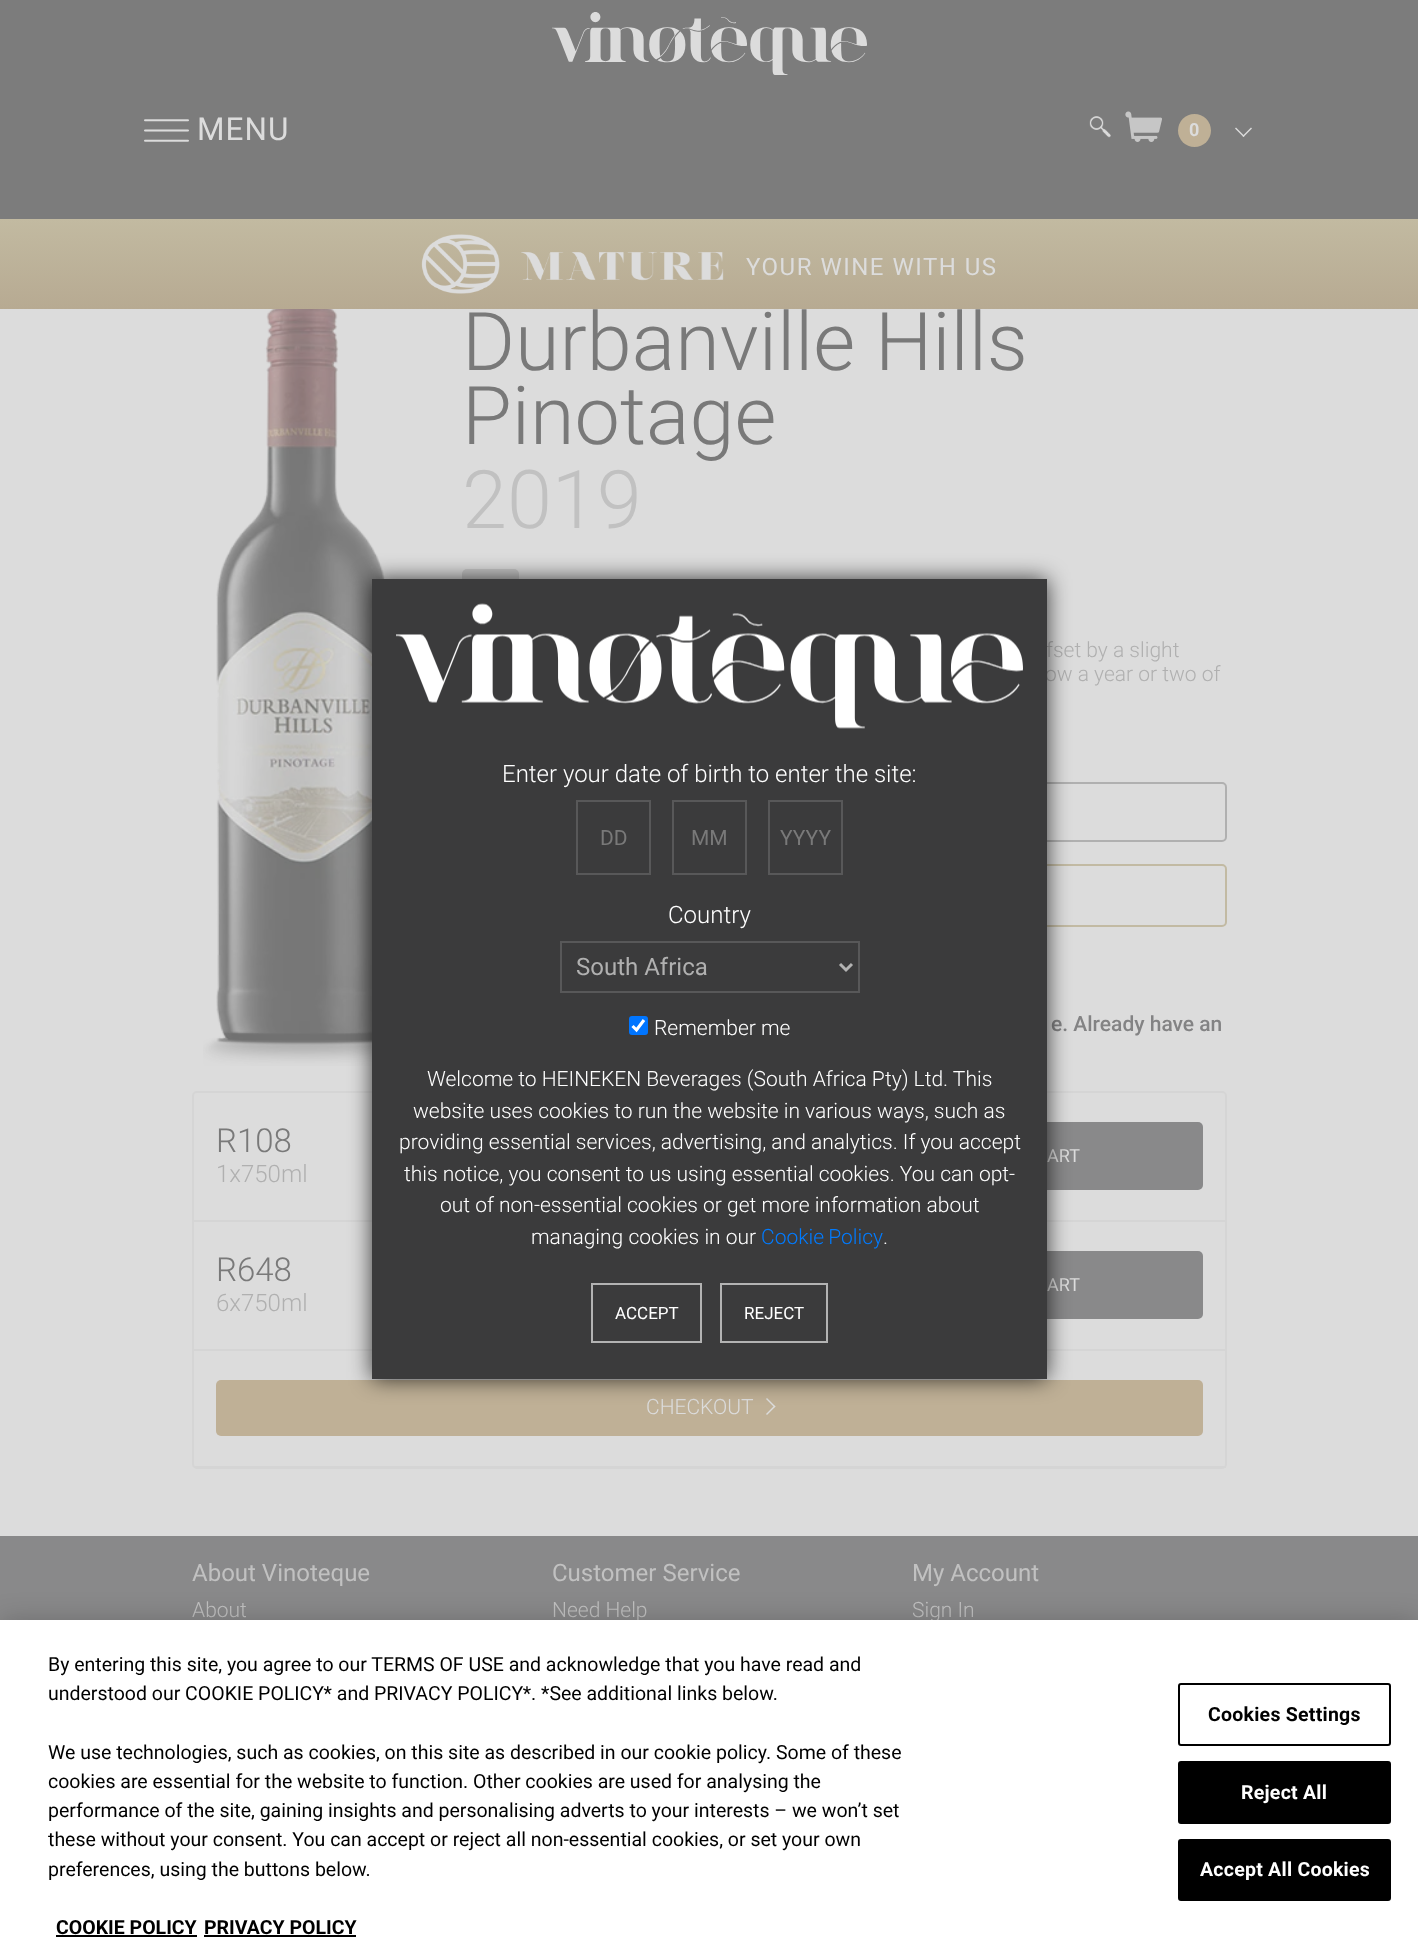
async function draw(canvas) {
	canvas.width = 1418;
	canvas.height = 1957;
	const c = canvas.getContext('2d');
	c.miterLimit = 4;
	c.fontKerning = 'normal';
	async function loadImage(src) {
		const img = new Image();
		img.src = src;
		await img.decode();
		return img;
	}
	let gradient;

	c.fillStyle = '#dcdcdc';
	c.fillRect(0, 0, 1418, 1957);
	c.fillStyle = '#7c7c7c';
	c.fillRect(0, 0, 1418, 219);
	c.drawImage(await loadImage('img1.png'), 552, 12, 315, 63);
	c.drawImage(await loadImage('img2.png'), 144, 119, 45, 23);
	c.letterSpacing = '1px';
	c.font = '31.5px Roboto';
	c.fillStyle = '#dcdcdc';
	c.fillText('MENU', 197, 140);
	c.drawImage(await loadImage('img3.png'), 1089, 116, 22, 22);
	c.drawImage(await loadImage('img4.png'), 1125, 111, 37, 31);
	c.fillStyle = '#bfb096';
	c.beginPath();
	c.arc(1194.5, 130.5, 16.5, 0, 2 * Math.PI);
	c.fill();
	c.letterSpacing = '0px';
	c.font = 'bold 18px Roboto';
	c.fillStyle = '#dcdcdc';
	c.fillText('0', 1189, 136);
	c.beginPath();
	c.moveTo(1252, 128.5);
	c.lineTo(1243.5, 137);
	c.lineTo(1242.5, 136);
	c.lineTo(1251, 127.5);
	c.closePath();
	c.fill();
	c.beginPath();
	c.moveTo(1244.5, 136);
	c.lineTo(1243.5, 137);
	c.lineTo(1235, 128.5);
	c.lineTo(1236, 127.5);
	c.closePath();
	c.fill();
	gradient = c.createLinearGradient(710, 219, 710, 309);
	gradient.addColorStop(0, '#c2baa1');
	gradient.addColorStop(1, '#b7aa92');
	c.fillStyle = gradient;
	c.fillRect(0, 219, 1418, 90);
	c.drawImage(await loadImage('img5.png'), 421, 234, 303, 60);
	c.letterSpacing = '1.5px';
	c.font = '24px Roboto';
	c.fillStyle = '#dcdcdc';
	c.fillText('YOUR WINE WITH US', 746, 275);
	c.drawImage(await loadImage('img6.png'), 203, 309, 183, 757);
	c.letterSpacing = '0px';
	c.font = '300 81px Roboto';
	c.fillStyle = '#797979';
	c.fillText('Durbanville Hills', 462, 370);
	c.fillText('Pinotage', 462, 444);
	c.fillStyle = '#c1c1c1';
	c.fillText('2019', 462, 528);
	c.fillStyle = '#c6c6c6';
	c.beginPath();
	c.roundRect(462, 569, 57, 22, 5);
	c.fill();
	c.font = '300 21px Roboto';
	c.fillStyle = '#b0b0b0';
	c.fillText('fset by a slight', 1046, 657);
	c.fillText('ow a year or two of', 1045, 681);
	c.beginPath();
	c.roundRect(463, 783, 763, 58, 4);
	c.strokeStyle = '#b0b0b0';
	c.lineWidth = 2;
	c.stroke();
	c.beginPath();
	c.roundRect(463, 865, 763, 61, 4);
	c.strokeStyle = '#c2baa3';
	c.stroke();
	c.font = '500 21px Roboto';
	c.fillStyle = '#838384';
	c.fillText('e. Already have an', 1051, 1031);
	c.beginPath();
	c.roundRect(193, 1092, 1033, 376, 4);
	c.strokeStyle = '#d5d5d5';
	c.stroke();
	c.fillStyle = '#d5d5d5';
	c.fillRect(194, 1220, 1032, 2);
	c.font = '300 33px Roboto';
	c.fillStyle = '#797979';
	c.fillText('R108', 216, 1152);
	c.font = '300 24px Roboto';
	c.fillStyle = '#b0b0b0';
	c.fillText('1x750ml', 216, 1182);
	c.fillStyle = '#89898a';
	c.beginPath();
	c.roundRect(845, 1122, 358, 68, 5);
	c.fill();
	c.font = '18px Roboto';
	c.fillStyle = '#dcdcdc';
	c.fillText('ART', 1047, 1162);
	c.fillStyle = '#d5d5d5';
	c.fillRect(194, 1349, 1032, 2);
	c.font = '300 33px Roboto';
	c.fillStyle = '#797979';
	c.fillText('R648', 216, 1281);
	c.font = '300 24px Roboto';
	c.fillStyle = '#b0b0b0';
	c.fillText('6x750ml', 216, 1311);
	c.fillStyle = '#89898a';
	c.beginPath();
	c.roundRect(845, 1251, 358, 68, 5);
	c.fill();
	c.font = '18px Roboto';
	c.fillStyle = '#dcdcdc';
	c.fillText('ART', 1047, 1291);
	c.fillStyle = '#d5d5d5';
	c.fillRect(194, 1466, 1032, 2);
	c.fillStyle = '#bfb096';
	c.beginPath();
	c.roundRect(216, 1380, 987, 56, 5);
	c.fill();
	c.font = '300 21px Roboto';
	c.fillStyle = '#dcdcdc';
	c.fillText('CHECKOUT', 646, 1414);
	c.beginPath();
	c.moveTo(767, 1398);
	c.lineTo(775.5, 1406.5);
	c.lineTo(774.5, 1407.5);
	c.lineTo(766, 1399);
	c.closePath();
	c.fill();
	c.beginPath();
	c.moveTo(774.5, 1405.5);
	c.lineTo(775.5, 1406.5);
	c.lineTo(767, 1415);
	c.lineTo(766, 1414);
	c.closePath();
	c.fill();
	c.fillStyle = '#000000bf';
	c.filter = 'blur(11px)';
	c.beginPath();
	c.rect(372, 579, 675, 800);
	c.fill();
	c.filter = 'none';
	c.fillStyle = '#3b3b3c';
	c.fillRect(372, 579, 675, 800);
	c.drawImage(await loadImage('img7.png'), 396, 603, 627, 126);
	c.font = '300 24px Roboto';
	c.fillStyle = '#fff';
	c.fillText('Enter your date of birth to enter the site:', 502, 782);
	c.strokeStyle = '#585859';
	c.strokeRect(577, 801, 73, 73);
	c.font = '21px Roboto';
	c.fillStyle = '#797979';
	c.fillText('DD', 600, 845);
	c.strokeRect(673, 801, 73, 73);
	c.fillText('MM', 691, 845);
	c.strokeRect(769, 801, 73, 73);
	c.fillText('YYYY', 780, 845);
	c.font = '300 24px Roboto';
	c.fillStyle = '#fff';
	c.fillText('Country', 668, 923);
	c.strokeRect(561, 942, 298, 50);
	c.beginPath();
	c.moveTo(840, 964);
	c.lineTo(846, 970);
	c.lineTo(852, 964);
	c.strokeStyle = '#b3b3b3';
	c.lineWidth = 3;
	c.stroke();
	c.font = '24px Roboto';
	c.fillStyle = '#b0b0b0';
	c.fillText('South Africa', 576, 975);
	c.fillStyle = '#0075ff';
	c.beginPath();
	c.roundRect(629, 1016, 19, 19, 3);
	c.fill();
	c.beginPath();
	c.moveTo(632.5, 1026);
	c.lineTo(636.5, 1030);
	c.lineTo(644, 1020);
	c.strokeStyle = '#fff';
	c.lineWidth = 3.1;
	c.stroke();
	c.font = '300 21px Roboto';
	c.fillStyle = '#fff';
	for (const [text, x, y] of [
		['Remember me', 654, 1035],
		['Welcome to HEINEKEN Beverages (South Africa Pty) Ltd. This', 427, 1086],
		['website uses cookies to run the website in various ways, such as', 413, 1118],
		['providing essential services, advertising, and analytics. If you accept', 399, 1149],
		['this notice, you consent to us using essential cookies. You can opt-', 404, 1181],
		['out of non-essential cookies or get more information about', 440, 1212],
		['managing cookies in our', 531, 1244],
	]) {
		c.fillText(text, x, y);
	}
	c.wordSpacing = '-1px';
	c.fillStyle = '#007bff';
	c.fillText('Cookie Policy', 761, 1244);
	c.wordSpacing = '0px';
	c.fillStyle = '#fff';
	c.fillText('.', 883, 1244);
	c.strokeStyle = '#b3b3b3';
	c.lineWidth = 2;
	c.strokeRect(592, 1284, 109, 58);
	c.font = '17px Roboto';
	c.fillText('ACCEPT', 615, 1319);
	c.strokeRect(721, 1284, 106, 58);
	c.fillText('REJECT', 744, 1319);
	c.fillStyle = '#89898a';
	c.fillRect(0, 1536, 1418, 84);
	c.font = '24px Roboto';
	c.fillStyle = '#c1c1c1';
	c.fillText('About Vinoteque', 192, 1581);
	c.font = '300 21px Roboto';
	c.fillText('About', 192, 1617);
	c.font = '24px Roboto';
	c.fillText('Customer Service', 552, 1581);
	c.font = '300 21px Roboto';
	c.fillText('Need Help', 552, 1617);
	c.font = '24px Roboto';
	c.fillText('My Account', 912, 1581);
	c.font = '300 21px Roboto';
	c.fillText('Sign In', 912, 1617);
	c.fillStyle = '#00000033';
	c.filter = 'blur(13.5px)';
	c.beginPath();
	c.rect(0, 1620, 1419, 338);
	c.fill();
	c.filter = 'none';
	c.fillStyle = '#fff';
	c.fillRect(0, 1620, 1418, 337);
	c.font = '19.5px Roboto';
	c.fillStyle = '#000';
	for (const [text, x, y] of [
		['By entering this site, you agree to our TERMS OF USE and acknowledge that you have read and', 48, 1671],
		['understood our COOKIE POLICY* and PRIVACY POLICY*.', 48, 1700],
		['*See additional links below.', 541, 1700],
		['We use technologies, such as cookies, on this site as described in our cookie policy. Some of these', 48, 1759],
		['cookies are essential for the website to function. Other cookies are used for analysing the', 48, 1788],
		['performance of the site, gaining insights and personalising adverts to your interests – we won’t set', 48, 1817],
		['these without your consent. You can accept or reject all non-essential cookies, or set your own', 48, 1846],
		['preferences, using the buttons below.', 48, 1876],
	]) {
		c.fillText(text, x, y);
	}
	c.font = 'bold 19.5px Roboto';
	c.fillText('COOKIE POLICY', 56, 1934);
	c.fillRect(56, 1935, 141, 2);
	c.fillText('PRIVACY POLICY', 204, 1934);
	c.fillRect(204, 1935, 152, 2);
	c.beginPath();
	c.roundRect(1179, 1684, 211, 61, 2);
	c.strokeStyle = '#000';
	c.stroke();
	c.letterSpacing = '0.25px';
	c.fillText('Cookies Settings', 1208, 1721);
	c.beginPath();
	c.roundRect(1179, 1762, 211, 61, 2);
	c.fill();
	c.stroke();
	c.fillStyle = '#fff';
	c.fillText('Reject All', 1241, 1799);
	c.fillStyle = '#000';
	c.beginPath();
	c.roundRect(1179, 1840, 211, 60, 2);
	c.fill();
	c.stroke();
	c.fillStyle = '#fff';
	c.fillText('Accept All Cookies', 1200, 1876);
}

draw(document.querySelector('canvas'));
